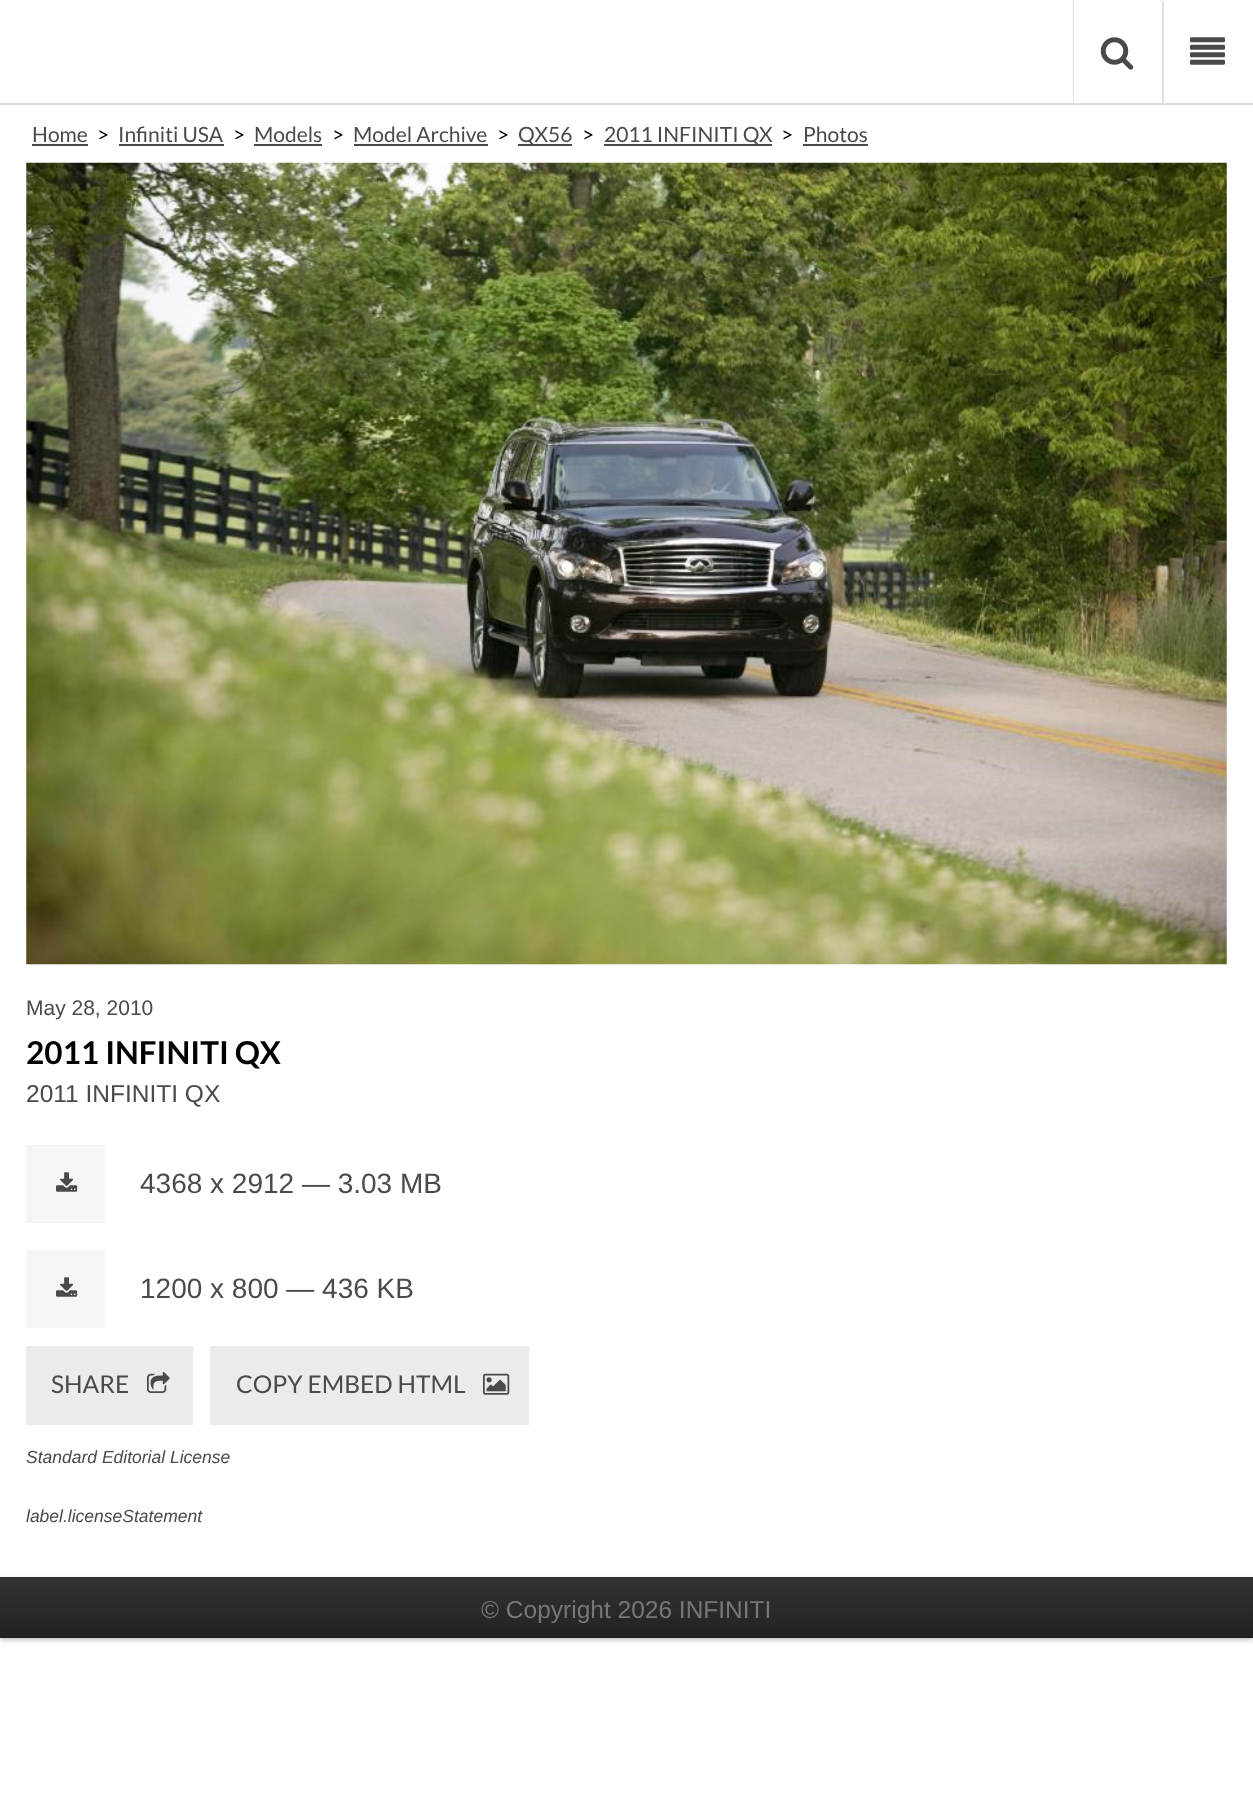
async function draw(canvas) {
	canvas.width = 1253;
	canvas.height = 1796;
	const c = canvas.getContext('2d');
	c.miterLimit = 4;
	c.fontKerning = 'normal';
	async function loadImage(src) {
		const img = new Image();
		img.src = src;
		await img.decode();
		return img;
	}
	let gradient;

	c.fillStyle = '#fff';
	c.fillRect(0, 0, 1253, 1796);
	c.fillStyle = '#dfdfdf';
	c.fillRect(0, 103, 1253, 2);
	c.beginPath();
	c.moveTo(1073, 103);
	c.lineTo(1073, 0);
	c.lineTo(1074, 2);
	c.lineTo(1074, 102);
	c.closePath();
	c.fill();
	c.drawImage(await loadImage('img1.png'), 1100, 37, 34, 33);
	c.beginPath();
	c.moveTo(1162, 103);
	c.lineTo(1162, 0);
	c.lineTo(1164, 2);
	c.lineTo(1164, 102);
	c.closePath();
	c.fill();
	c.drawImage(await loadImage('img2.png'), 1190, 37, 35, 28);
	c.font = '21px Lato';
	c.fillStyle = '#4a4a4a';
	c.fillText('Home', 32, 142);
	c.fillRect(32, 144, 56, 2);
	c.fillStyle = '#000';
	c.fillText('>', 97, 142);
	c.fillStyle = '#4a4a4a';
	c.fillText('Infiniti USA', 118, 142);
	c.fillRect(119, 144, 105, 2);
	c.fillStyle = '#000';
	c.fillText('>', 233, 142);
	c.fillStyle = '#4a4a4a';
	c.fillText('Models', 254, 142);
	c.fillRect(254, 144, 68, 2);
	c.fillStyle = '#000';
	c.fillText('>', 332, 142);
	c.fillStyle = '#4a4a4a';
	c.fillText('Model Archive', 353, 142);
	c.fillRect(354, 144, 134, 2);
	c.fillStyle = '#000';
	c.fillText('>', 497, 142);
	c.fillStyle = '#4a4a4a';
	c.fillRect(518, 144, 54, 2);
	c.fillText('QX56', 518, 142);
	c.fillStyle = '#000';
	c.fillText('>', 582, 142);
	c.fillStyle = '#4a4a4a';
	c.fillRect(604, 144, 168, 2);
	c.fillText('2011 INFINITI QX', 604, 142);
	c.fillStyle = '#000';
	c.fillText('>', 781, 142);
	c.fillStyle = '#4a4a4a';
	c.fillText('Photos', 803, 142);
	c.fillRect(803, 144, 65, 2);
	c.drawImage(await loadImage('img3.png'), 26, 162, 1201, 803);
	c.font = '21px Liberation Sans';
	c.fillText('May 28, 2010', 26, 1015);
	c.font = 'bold 31.5px Lato';
	c.fillStyle = '#000';
	c.fillText('2011 INFINITI QX', 26, 1064);
	c.font = '24.5px Liberation Sans';
	c.fillStyle = '#4a4a4a';
	c.fillText('2011 INFINITI QX', 26, 1102);
	c.fillStyle = '#f5f5f5';
	c.fillRect(26, 1145, 79, 78);
	c.drawImage(await loadImage('img4.png'), 56, 1172, 22, 20);
	c.font = '28px Liberation Sans';
	c.fillStyle = '#4a4a4a';
	c.fillText('4368 x 2912 — 3.03 MB', 140, 1193);
	c.fillStyle = '#f5f5f5';
	c.fillRect(26, 1250, 79, 78);
	c.drawImage(await loadImage('img4.png'), 56, 1277, 22, 20);
	c.fillStyle = '#4a4a4a';
	c.fillText('1200 x 800 — 436 KB', 140, 1298);
	c.fillStyle = '#ebebeb';
	c.fillRect(26, 1346, 167, 79);
	c.font = '24.5px Lato';
	c.fillStyle = '#4a4a4a';
	c.fillText('SHARE', 51, 1393);
	c.drawImage(await loadImage('img5.png'), 147, 1372, 23, 21);
	c.fillStyle = '#ebebeb';
	c.fillRect(210, 1346, 319, 79);
	c.fillStyle = '#4a4a4a';
	c.fillText('COPY EMBED HTML', 236, 1393);
	c.drawImage(await loadImage('img6.png'), 483, 1373, 27, 22);
	c.font = 'italic 17.5px Liberation Sans';
	c.fillText('Standard Editorial License', 26, 1463);
	c.fillText('label.licenseStatement', 26, 1522);
	c.fillStyle = '#00000040';
	c.filter = 'blur(2.5px)';
	c.beginPath();
	c.rect(0, 1579, 1253, 61);
	c.fill();
	c.filter = 'none';
	gradient = c.createLinearGradient(627, 1577, 627, 1638);
	gradient.addColorStop(0, '#333');
	gradient.addColorStop(1, '#222');
	c.fillStyle = gradient;
	c.fillRect(0, 1577, 1253, 59);
	c.fillStyle = '#1f1f1f';
	c.fillRect(0, 1636, 1253, 2);
	c.font = '24.5px Liberation Sans';
	c.fillStyle = '#777';
	c.fillText('© Copyright 2026 INFINITI', 481, 1618);
}

draw(document.querySelector('canvas'));
